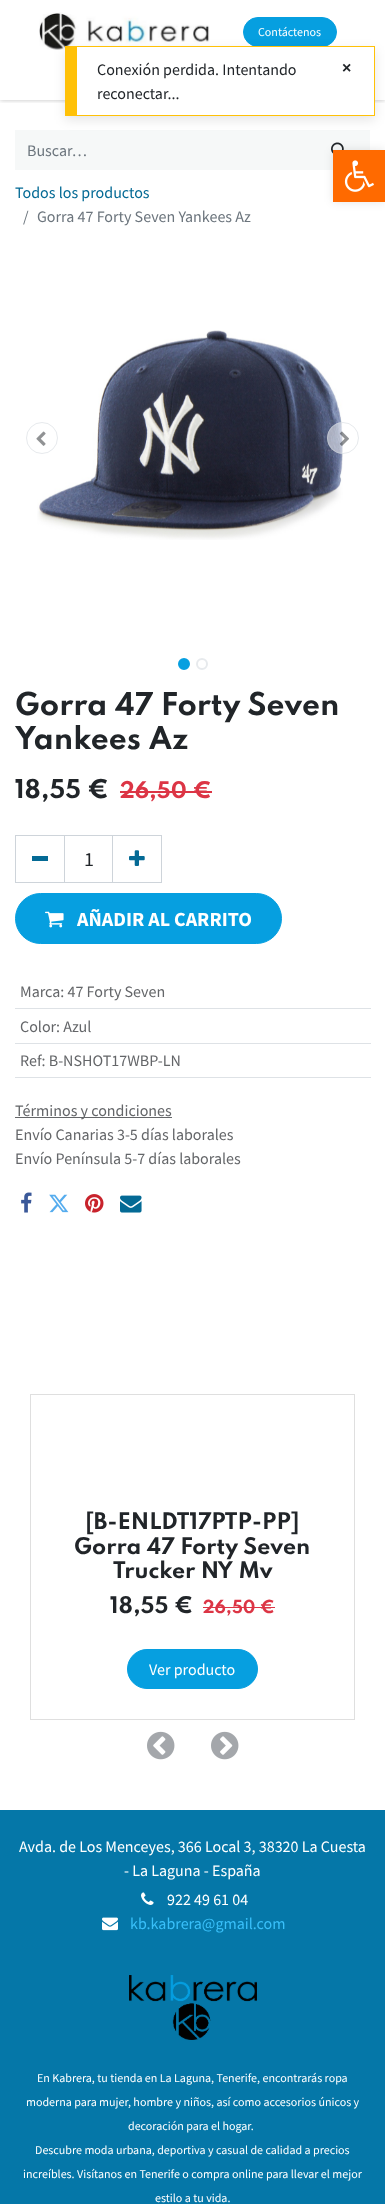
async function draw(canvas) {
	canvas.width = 385;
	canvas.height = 2204;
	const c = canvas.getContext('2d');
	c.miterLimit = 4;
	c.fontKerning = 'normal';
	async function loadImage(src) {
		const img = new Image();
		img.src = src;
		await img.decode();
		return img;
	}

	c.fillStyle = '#fff';
	c.fillRect(0, 0, 385, 2204);
	c.save();
	c.beginPath();
	c.rect(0, 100, 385, 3);
	c.clip();
	c.fillStyle = '#00000040';
	c.filter = 'blur(2.5px)';
	c.beginPath();
	c.rect(0, 0, 385, 100);
	c.fill();
	c.filter = 'none';
	c.restore();
	c.drawImage(await loadImage('img1.png'), 39, 12, 171, 38);
	c.fillStyle = '#069fe0';
	c.beginPath();
	c.roundRect(243.5, 17.5, 93, 29, 14.5);
	c.fill();
	c.strokeStyle = '#069fe0';
	c.stroke();
	c.font = '12px Source Sans Pro';
	c.fillStyle = '#fff';
	c.fillText('Contáctenos', 258, 36);
	c.fillStyle = '#f6f8f8';
	c.fillRect(15, 130, 355, 40);
	c.font = '16px Source Sans Pro';
	c.fillStyle = '#6c757d';
	c.fillText('Buscar…', 27, 156);
	c.drawImage(await loadImage('img2.png'), 331, 142, 13, 12);
	c.fillStyle = '#046a95';
	c.fillText('Todos los productos', 15, 198);
	c.fillStyle = '#6c757d';
	c.fillText('/', 23, 222);
	c.fillText('Gorra 47 Forty Seven Yankees Az', 37, 222);
	c.drawImage(await loadImage('img3.png'), 37, 330, 306, 210);
	c.beginPath();
	c.arc(42, 438, 15.5, 0, 2 * Math.PI);
	c.strokeStyle = '#e7eaed';
	c.stroke();
	c.drawImage(await loadImage('img4.png'), 36, 431, 10, 15);
	c.fillStyle = '#ffffff80';
	c.beginPath();
	c.arc(343, 438, 16, 0, 2 * Math.PI);
	c.fill();
	c.beginPath();
	c.arc(343, 438, 15.5, 0, 2 * Math.PI);
	c.strokeStyle = '#ced4da80';
	c.stroke();
	c.drawImage(await loadImage('img5.png'), 339, 431, 10, 15);
	c.fillStyle = '#069fe0';
	c.beginPath();
	c.arc(184, 664, 5, 0, 2 * Math.PI);
	c.fill();
	c.strokeStyle = '#069fe0';
	c.lineWidth = 2;
	c.stroke();
	c.beginPath();
	c.arc(202, 664, 5, 0, 2 * Math.PI);
	c.strokeStyle = '#e7eaed';
	c.stroke();
	c.font = 'bold 28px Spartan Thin';
	c.fillStyle = '#212529';
	c.fillText('Gorra 47 Forty Seven', 15, 715);
	c.fillText('Yankees Az', 15, 749);
	c.font = 'bold 23px Spartan Thin';
	c.fillText('18,55 €', 15, 798);
	c.font = 'bold 20.4px Spartan Thin';
	c.fillStyle = '#dc3545';
	c.fillText('26,50 €', 120, 798);
	c.fillRect(120, 791, 92, 2);
	c.strokeStyle = '#ced4da';
	c.lineWidth = 1;
	c.strokeRect(64.5, 835.5, 48, 47);
	c.strokeRect(15.5, 835.5, 49, 47);
	c.fillStyle = '#046a95';
	c.fillRect(32, 856, 16, 5);
	c.font = '20px Source Sans Pro';
	c.fillStyle = '#212529';
	c.fillText('1', 84, 866);
	c.strokeRect(112.5, 835.5, 49, 47);
	c.drawImage(await loadImage('img6.png'), 129, 850, 16, 16);
	c.fillStyle = '#069fe0';
	c.beginPath();
	c.roundRect(15.5, 893.5, 266, 50, 25);
	c.fill();
	c.strokeStyle = '#069fe0';
	c.stroke();
	c.drawImage(await loadImage('img7.png'), 45, 911, 19, 17);
	c.font = 'bold 20px Source Sans Pro';
	c.fillStyle = '#fff';
	c.fillText('AÑADIR AL CARRITO', 77, 926);
	c.fillStyle = '#dee2e6';
	c.fillRect(15, 1008, 356, 1);
	c.font = '16px Source Sans Pro';
	c.fillStyle = '#646669';
	c.fillText('Marca: 47 Forty Seven', 20, 997);
	c.fillStyle = '#dee2e6';
	c.fillRect(15, 1043, 356, 1);
	c.fillStyle = '#646669';
	c.fillText('Color', 20, 1032);
	c.fillText(': Azul', 56, 1032);
	c.fillStyle = '#dee2e6';
	c.fillRect(15, 1077, 356, 1);
	c.fillStyle = '#646669';
	c.fillText('Ref: B-NSHOT17WBP-LN', 20, 1066);
	c.fillRect(15, 1117, 157, 1);
	for (const [text, x, y] of [
		['Términos y condiciones', 15, 1116],
		['Envío Canarias 3-5 días laborales', 15, 1140],
		['Envío Península 5-7 días laborales', 15, 1164],
	]) {
		c.fillText(text, x, y);
	}
	c.drawImage(await loadImage('img8.png'), 21, 1192, 11, 21);
	c.drawImage(await loadImage('img9.png'), 49, 1194, 20, 19);
	c.drawImage(await loadImage('img10.png'), 85, 1194, 19, 19);
	c.drawImage(await loadImage('img11.png'), 120, 1195, 22, 18);
	c.strokeStyle = '#dfdfdf';
	c.strokeRect(30.5, 1394.5, 324, 325);
	c.font = 'bold 20.4px Spartan Thin';
	c.fillStyle = '#212529';
	for (const [text, x, y] of [
		['[B-ENLDT17PTP-PP]', 85, 1529],
		['Gorra 47 Forty Seven', 74, 1554],
		['Trucker NY Mv', 113, 1578],
		['18,55 €', 110, 1613],
	]) {
		c.fillText(text, x, y);
	}
	c.font = 'bold 16px Spartan Thin';
	c.fillStyle = '#dc3545';
	c.fillText('26,50 €', 203, 1613);
	c.fillRect(203, 1607, 72, 1);
	c.fillStyle = '#069fe0';
	c.beginPath();
	c.roundRect(127.5, 1649.5, 130, 39, 19.5);
	c.fill();
	c.strokeStyle = '#069fe0';
	c.stroke();
	c.font = '16px Source Sans Pro';
	c.fillStyle = '#fff';
	c.fillText('Ver producto', 149, 1675);
	c.drawImage(await loadImage('img12.png'), 147, 1731, 28, 29);
	c.drawImage(await loadImage('img13.png'), 211, 1731, 28, 29);
	c.fillStyle = '#0577a8';
	c.fillRect(0, 1810, 385, 394);
	c.fillStyle = '#fff';
	c.fillText('Avda. de Los Menceyes, 366 Local 3, 38320 La Cuesta', 19, 1852);
	c.fillText('- La Laguna - España', 124, 1876);
	c.drawImage(await loadImage('img14.png'), 141, 1892, 13, 13);
	c.fillText('922 49 61 04', 167, 1905);
	c.drawImage(await loadImage('img15.png'), 102, 1917, 16, 14);
	c.fillStyle = '#39c0fa';
	c.fillText('kb.kabrera@gmail.com', 130, 1929);
	c.drawImage(await loadImage('img16.png'), 129, 1975, 128, 65);
	c.font = '12px Source Sans Pro';
	c.fillStyle = '#fff';
	for (const [text, x, y] of [
		['En Kabrera, tu tienda en La Laguna, Tenerife, encontrarás ropa', 37, 2082],
		['moderna para mujer, hombre y niños, así como accesorios únicos y', 26, 2106],
		['decoración para el hogar.', 128, 2130],
		['Descubre moda urbana, deportiva y casual de calidad a precios', 35, 2154],
		['increíbles. Visítanos en Tenerife o compra online para llevar el mejor', 23, 2178],
		['estilo a tu vida.', 155, 2202],
	]) {
		c.fillText(text, x, y);
	}
	c.fillStyle = '#0000001a';
	c.filter = 'blur(6px)';
	c.beginPath();
	c.rect(65, 50, 310, 70);
	c.fill();
	c.filter = 'none';
	for (const [x, y, w, h, color] of [
		[77, 47, 297, 68, '#fff'],
		[77, 46, 298, 1, '#ffc107'],
		[374, 46, 1, 70, '#ffc107'],
		[77, 115, 298, 1, '#ffc107'],
		[65, 46, 12, 70, '#ffc107'],
	]) {
		c.fillStyle = color;
		c.fillRect(x, y, w, h);
	}
	c.font = '16px Source Sans Pro';
	c.fillStyle = '#212529';
	c.fillText('Conexión perdida. Intentando', 97, 75);
	c.fillText('reconectar...', 97, 99);
	c.font = 'bold 16px Liberation Sans';
	c.fillText('×', 342, 73);
	c.fillStyle = '#0000001a';
	c.filter = 'blur(5px)';
	c.beginPath();
	c.rect(333, 150, 52, 52);
	c.fill();
	c.filter = 'none';
	c.fillStyle = '#ff6a00';
	c.fillRect(333, 150, 52, 52);
	c.drawImage(await loadImage('img17.png'), 344, 160, 30, 32);
}

draw(document.querySelector('canvas'));
